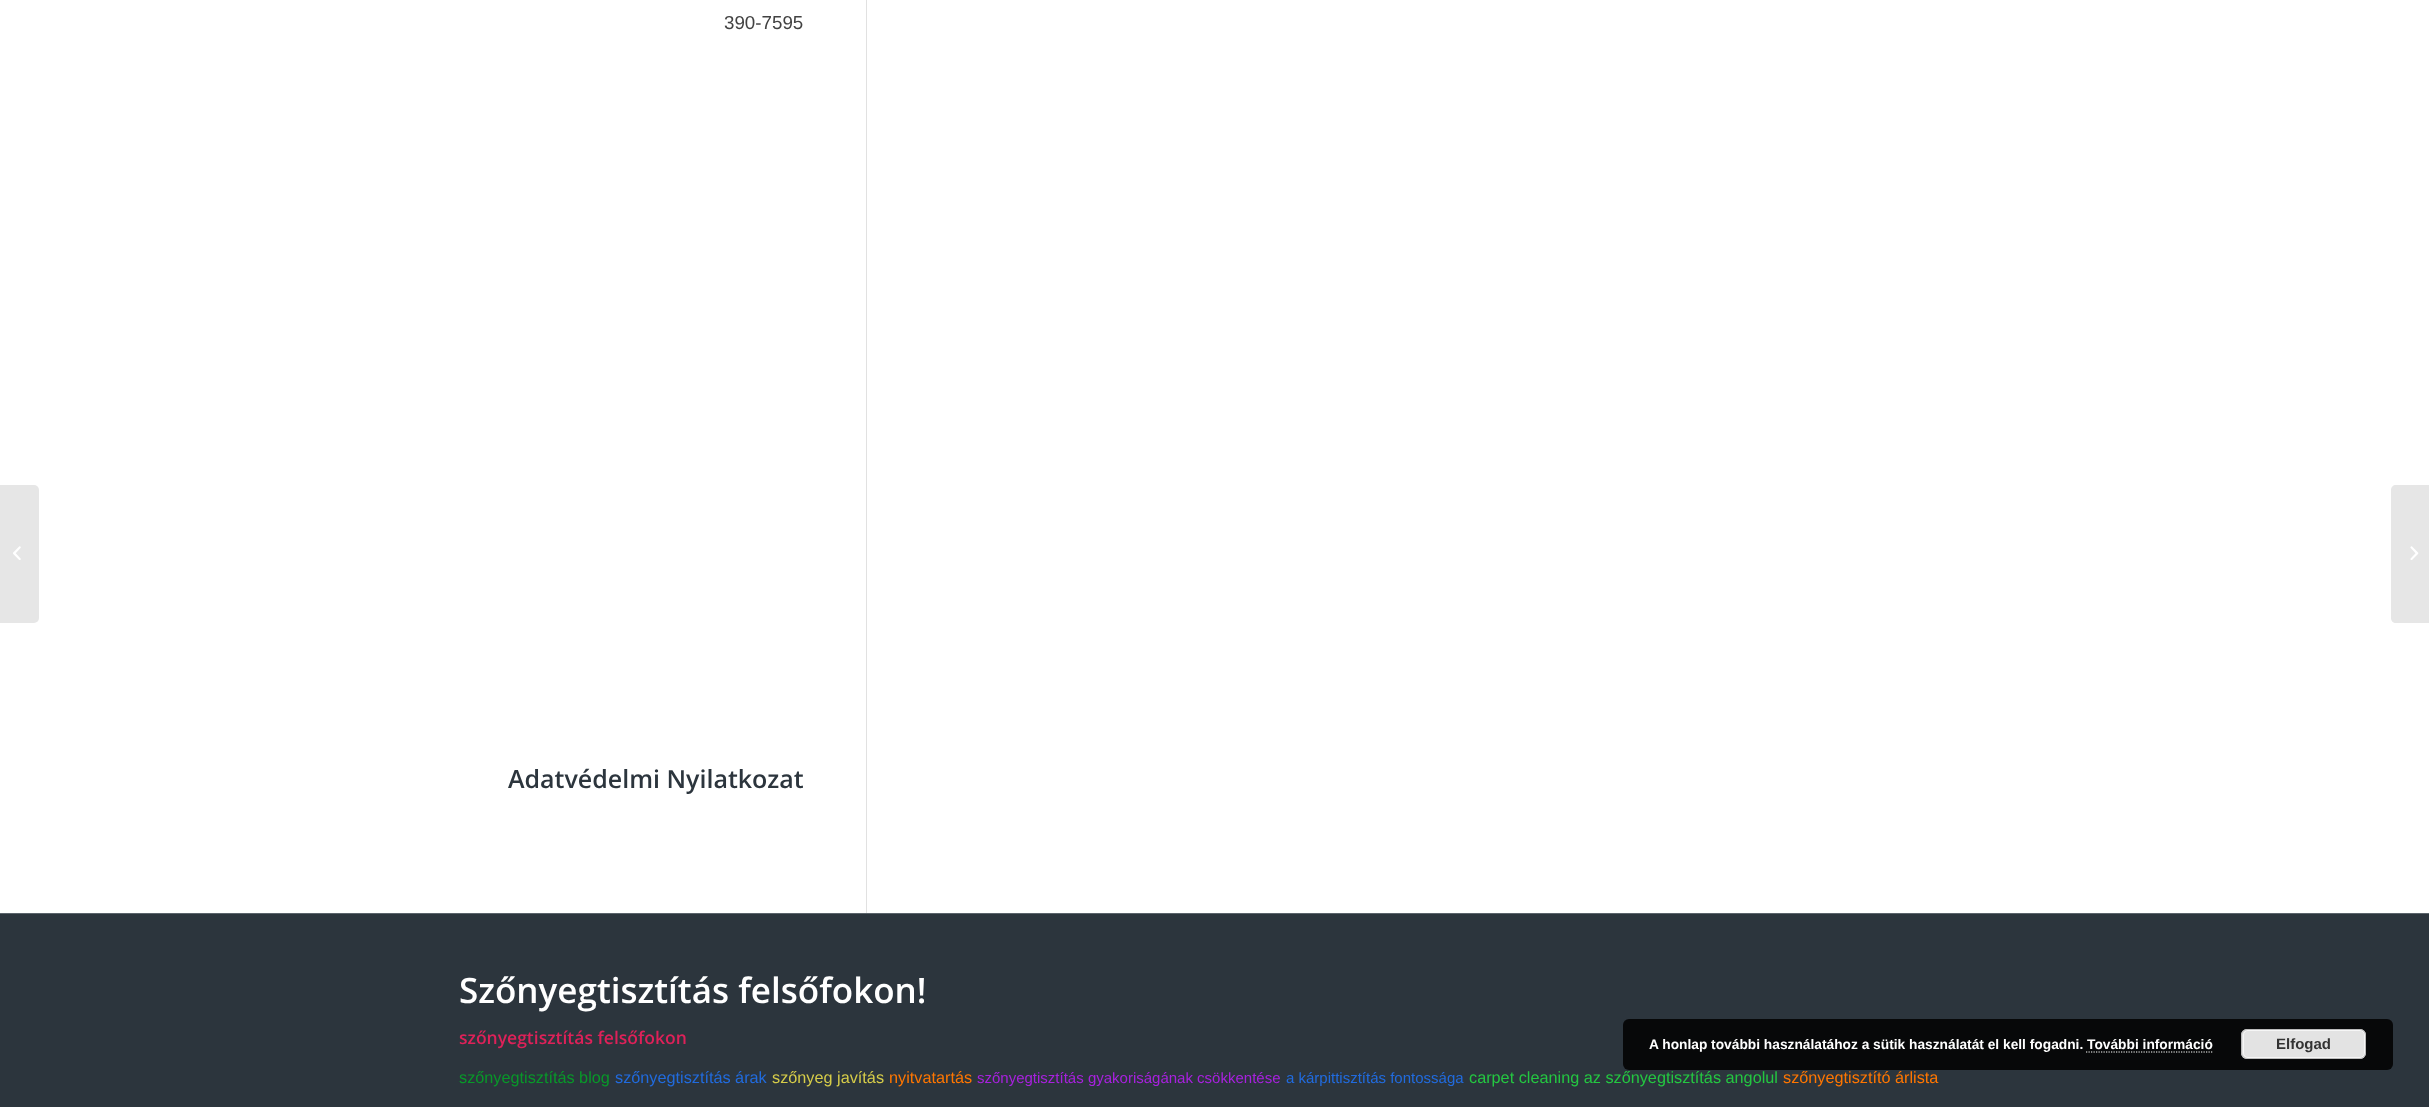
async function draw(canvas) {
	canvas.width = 2429;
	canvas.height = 1107;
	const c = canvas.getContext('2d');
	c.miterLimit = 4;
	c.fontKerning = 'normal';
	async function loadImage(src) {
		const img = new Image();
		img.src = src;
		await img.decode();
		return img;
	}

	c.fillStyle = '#fff';
	c.fillRect(0, 0, 2429, 1107);
	c.fillStyle = '#e6e6e6';
	c.beginPath();
	c.roundRect(0, 485, 39, 138, [0, 5, 5, 0]);
	c.fill();
	c.drawImage(await loadImage('img1.png'), 13, 546, 8, 14);
	c.fillStyle = '#e1e1e1';
	c.fillRect(866, 0, 1, 913);
	c.font = '18.75px Liberation Sans';
	c.fillStyle = '#424242';
	c.fillText('390-7595', 724, 29);
	c.font = '600 25px Open Sans';
	c.fillStyle = '#2c353d';
	c.fillText('Adatvédelmi Nyilatkozat', 508, 788);
	c.fillRect(0, 914, 2429, 193);
	c.fillStyle = '#5b646b';
	c.fillRect(0, 913, 2429, 1);
	c.font = '600 35px Open Sans';
	c.fillStyle = '#fff';
	c.fillText('Szőnyegtisztítás felsőfokon!', 459, 1003);
	c.font = '600 17.5px Open Sans';
	c.fillStyle = '#de2159';
	c.fillText('szőnyegtisztítás felsőfokon', 459, 1044);
	c.font = '16.25px Liberation Sans';
	c.fillStyle = '#089829';
	c.fillText('szőnyegtisztítás blog', 459, 1083);
	c.fillStyle = '#216bde';
	c.fillText('szőnyegtisztítás árak', 615, 1083);
	c.fillStyle = '#d6cc49';
	c.fillText('szőnyeg javítás', 772, 1083);
	c.fillStyle = '#ff7600';
	c.fillText('nyitvatartás', 889, 1083);
	c.font = '15px Liberation Sans';
	c.fillStyle = '#a821de';
	c.fillText('szőnyegtisztítás gyakoriságának csökkentése', 977, 1083);
	c.fillStyle = '#216bde';
	c.fillText('a kárpittisztítás fontossága', 1286, 1083);
	c.font = '16.25px Liberation Sans';
	c.fillStyle = '#24c741';
	c.fillText('carpet cleaning az szőnyegtisztítás angolul', 1469, 1083);
	c.fillStyle = '#ff7600';
	c.fillText('szőnyegtisztító árlista', 1783, 1083);
	c.fillStyle = '#e6e6e6';
	c.beginPath();
	c.moveTo(2396, 485);
	c.lineTo(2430, 485);
	c.lineTo(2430, 623);
	c.lineTo(2396, 623);
	c.bezierCurveTo(2393, 623, 2391, 621, 2391, 618);
	c.lineTo(2391, 490);
	c.bezierCurveTo(2391, 487, 2393, 485, 2396, 485);
	c.closePath();
	c.fill();
	c.drawImage(await loadImage('img2.png'), 2410, 546, 9, 14);
	c.fillStyle = '#070809';
	c.beginPath();
	c.roundRect(1623, 1019, 770, 51, 6);
	c.fill();
	c.font = 'bold 13.75px Liberation Sans';
	c.fillStyle = '#fff';
	c.fillText('A honlap további használatához a sütik használatát el kell fogadni. További információ', 1649, 1049);
	c.fillStyle = '#e3e3e3';
	c.beginPath();
	c.roundRect(2241, 1029, 125, 30, 6);
	c.fill();
	c.beginPath();
	c.roundRect(2243.5, 1030.5, 121, 27, 4.5);
	c.strokeStyle = '#f6f6f6';
	c.stroke();
	c.beginPath();
	c.roundRect(2241.5, 1029.5, 124, 29, 5.5);
	c.strokeStyle = '#bbb';
	c.stroke();
	c.font = 'bold 15px Liberation Sans';
	c.fillStyle = '#333';
	c.fillText('Elfogad', 2276, 1049);
	c.beginPath();
	c.moveTo(2086, 1052);
	c.lineTo(2212.5, 1052);
	c.strokeStyle = '#fff';
	c.lineWidth = 1.2;
	c.setLineDash([1.25, 1.25]);
	c.stroke();
}

draw(document.querySelector('canvas'));
